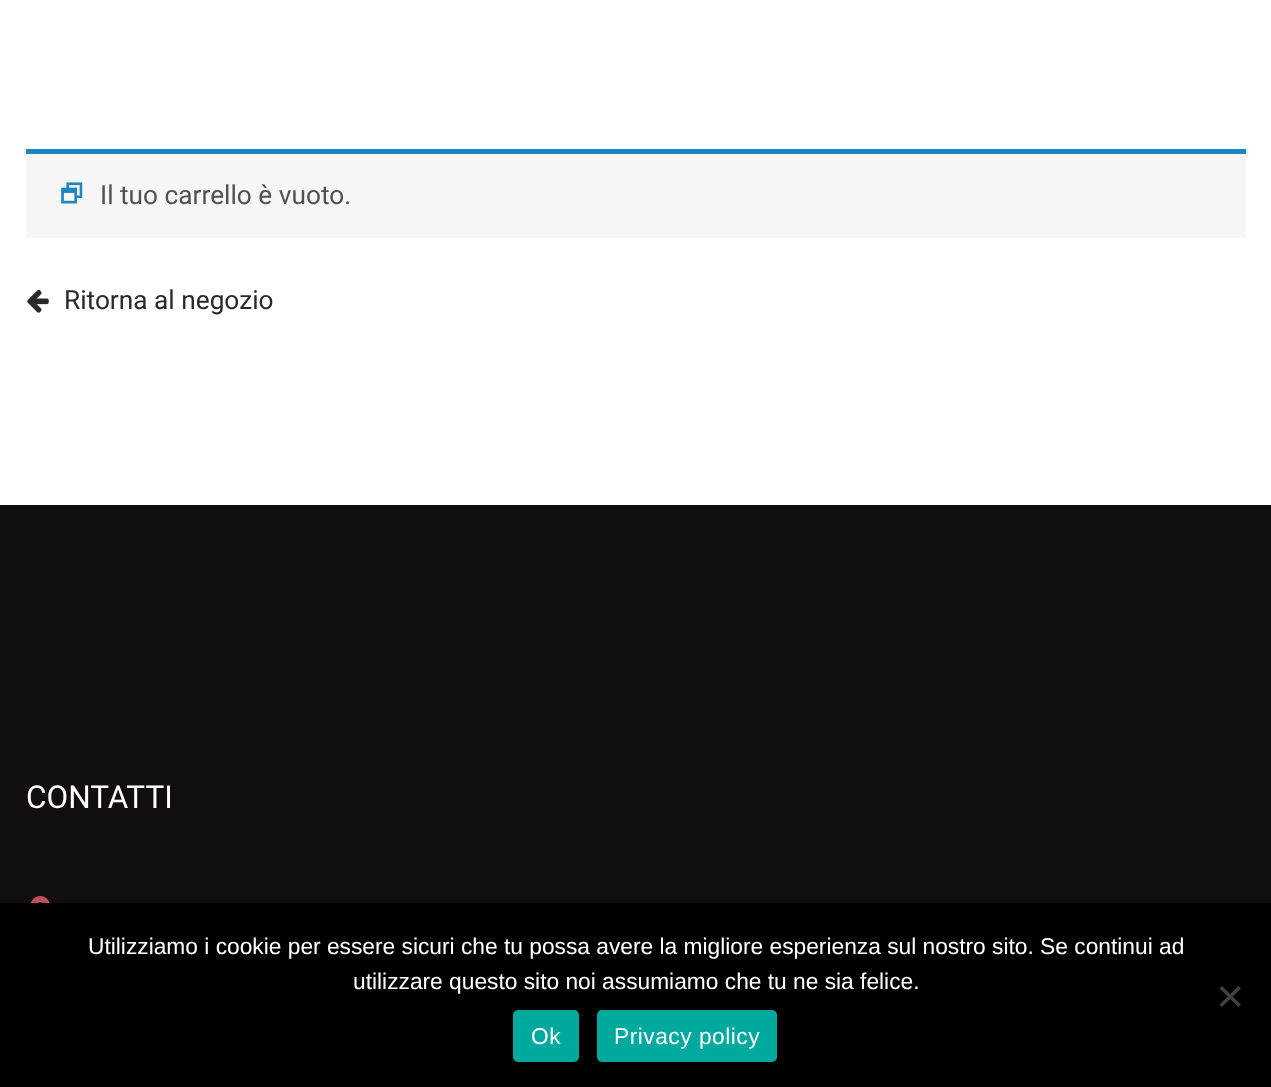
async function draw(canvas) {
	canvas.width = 1271;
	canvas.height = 1087;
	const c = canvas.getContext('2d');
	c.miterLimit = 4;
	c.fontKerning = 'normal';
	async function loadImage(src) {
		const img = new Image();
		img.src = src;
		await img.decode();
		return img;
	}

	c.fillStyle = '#fff';
	c.fillRect(0, 0, 1271, 1087);
	c.fillStyle = '#f7f6f7';
	c.fillRect(26, 154, 1220, 84);
	c.fillStyle = '#1e85be';
	c.fillRect(26, 149, 1220, 5);
	c.drawImage(await loadImage('img1.png'), 61, 182, 22, 22);
	c.font = '26.25px Roboto';
	c.fillStyle = '#515151';
	c.fillText('Il tuo carrello è vuoto.', 100, 204);
	c.drawImage(await loadImage('img2.png'), 27, 289, 22, 24);
	c.fillStyle = '#292929';
	c.fillText('Ritorna al negozio', 64, 309);
	c.fillStyle = '#120e0d';
	c.fillRect(0, 505, 1271, 398);
	c.font = '31.5px Roboto';
	c.fillStyle = '#fff';
	c.fillText('CONTATTI', 26, 808);
	c.drawImage(await loadImage('img3.png'), 31, 896, 19, 7);
	c.fillStyle = '#000';
	c.fillRect(0, 903, 1271, 184);
	c.font = '22.75px Liberation Sans';
	c.fillStyle = '#fff';
	c.fillText('Utilizziamo i cookie per essere sicuri che tu possa avere la migliore esperienza sul nostro sito. Se continui ad', 88, 954);
	c.fillText('utilizzare questo sito noi assumiamo che tu ne sia felice.', 353, 989);
	c.fillStyle = '#404040';
	c.beginPath();
	c.moveTo(1238.5, 986);
	c.lineTo(1241, 988.5);
	c.lineTo(1222, 1007);
	c.lineTo(1219.5, 1004.5);
	c.closePath();
	c.fill();
	c.beginPath();
	c.moveTo(1219.5, 988.5);
	c.lineTo(1222, 986);
	c.lineTo(1241, 1004.5);
	c.lineTo(1238.5, 1007);
	c.closePath();
	c.fill();
	c.fillStyle = '#00a99d';
	c.beginPath();
	c.roundRect(513, 1010, 66, 52, 5);
	c.fill();
	c.letterSpacing = '0.5px';
	c.fillStyle = '#fff';
	c.fillText('Ok', 531, 1044);
	c.fillStyle = '#00a99d';
	c.beginPath();
	c.roundRect(597, 1010, 180, 52, 5);
	c.fill();
	c.fillStyle = '#fff';
	c.fillText('Privacy policy', 614, 1044);
}

draw(document.querySelector('canvas'));
